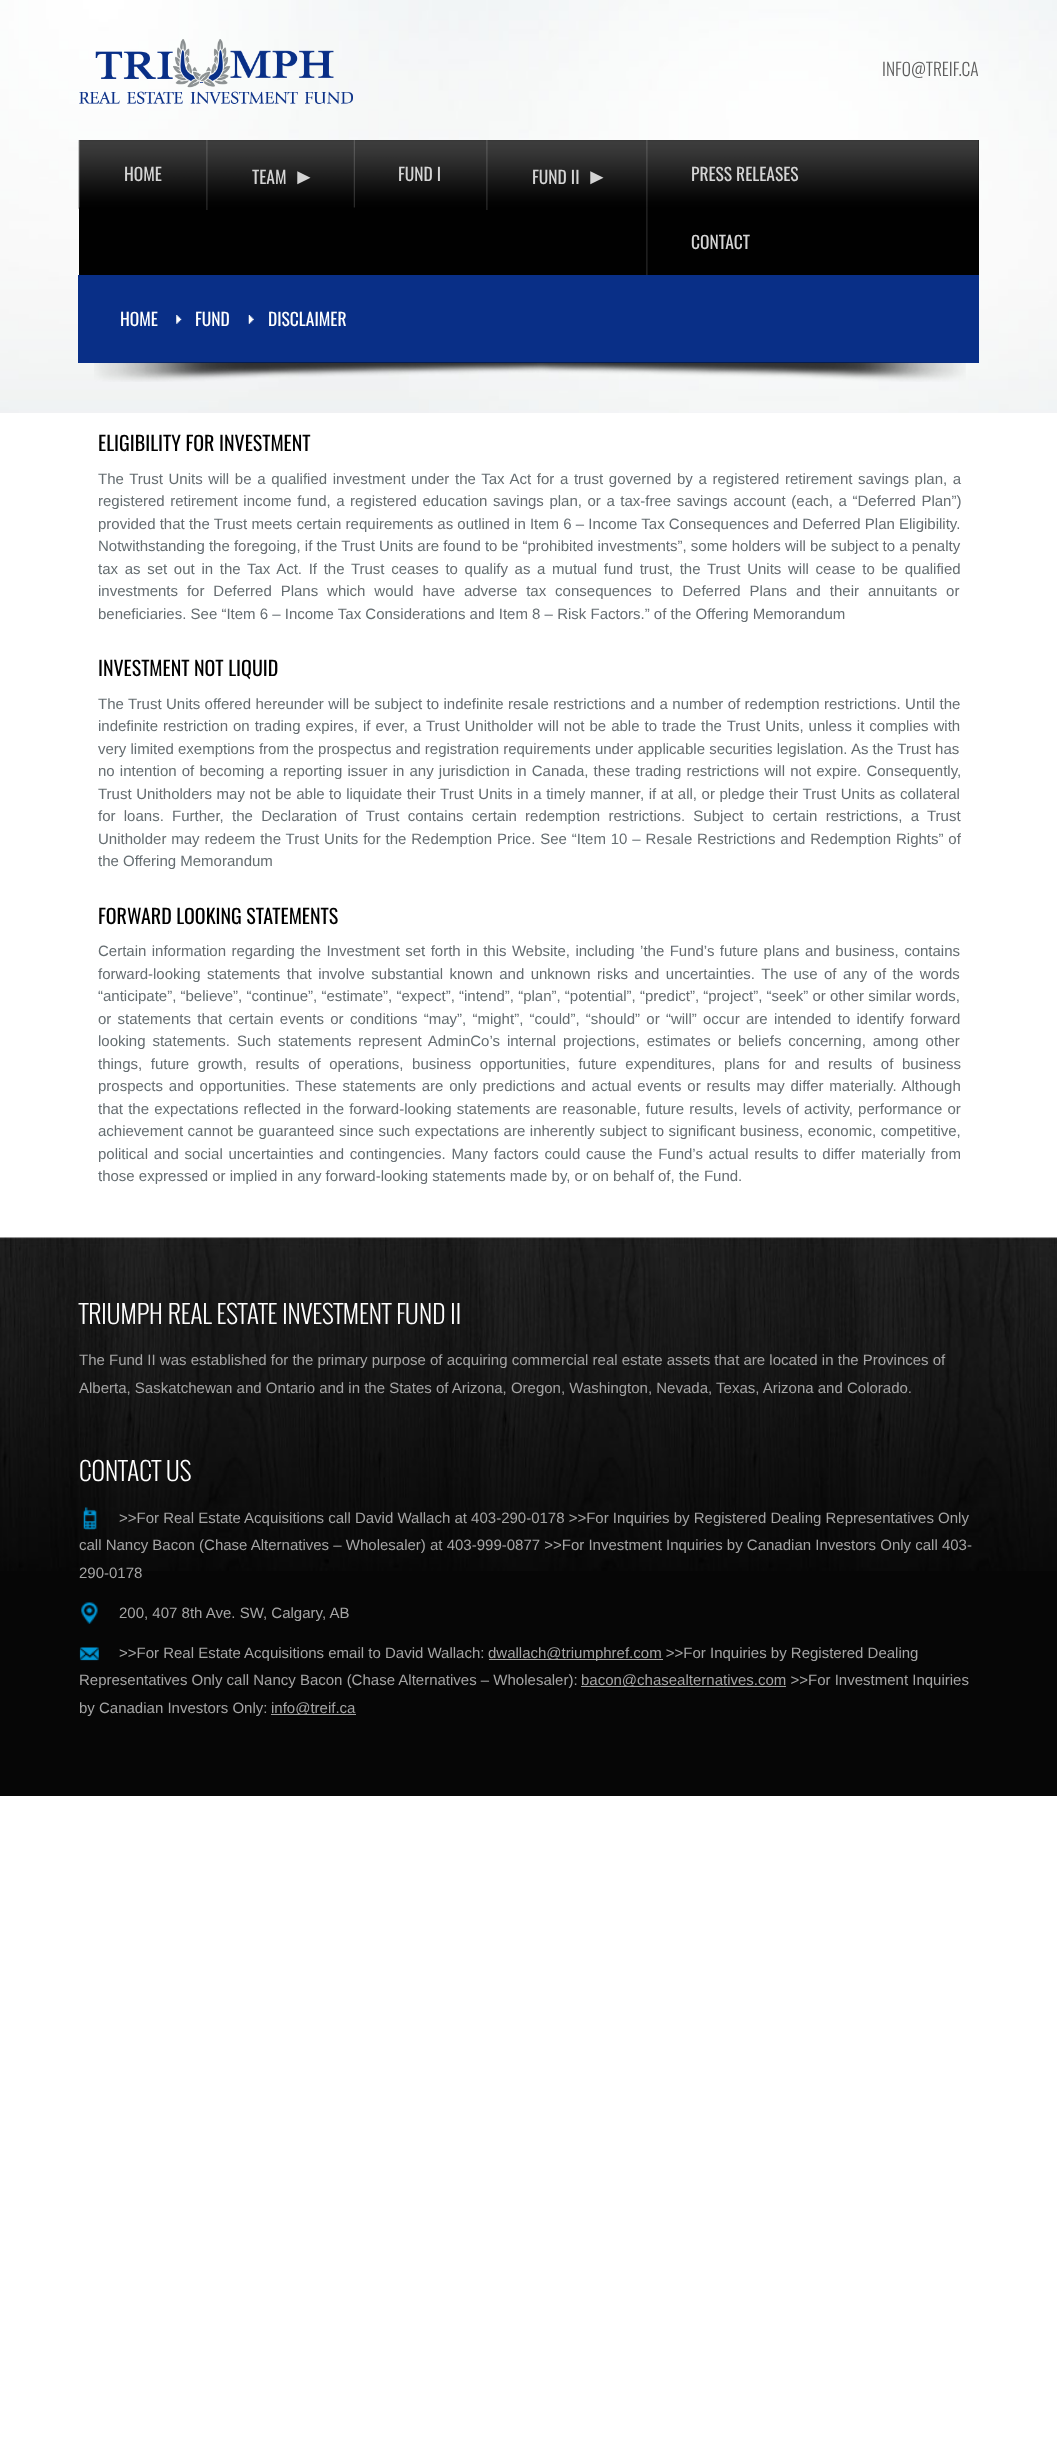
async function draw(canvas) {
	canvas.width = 1057;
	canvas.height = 2460;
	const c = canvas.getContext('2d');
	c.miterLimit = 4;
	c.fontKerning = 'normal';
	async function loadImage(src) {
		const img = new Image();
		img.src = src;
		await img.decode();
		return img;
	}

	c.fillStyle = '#fff';
	c.fillRect(0, 0, 1057, 2460);
	c.drawImage(await loadImage('img1.png'), 0, 0, 1057, 413);
	c.drawImage(await loadImage('img2.png'), 79, 39, 274, 65);
	c.font = '300 17.5px "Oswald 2"';
	c.fillStyle = '#5e5e5e';
	c.fillText('INFO@TREIF.CA', 882, 76);
	c.fillStyle = '#010101';
	c.fillRect(79, 140, 900, 135);
	c.drawImage(await loadImage('img3.png'), 78, 140, 901, 69);
	c.drawImage(await loadImage('img4.png'), 79, 140, 1, 68);
	c.font = '17.5px Oswald';
	c.fillStyle = '#d4d4d4';
	c.fillText('HOME', 124, 181);
	c.drawImage(await loadImage('img5.png'), 206, 140, 2, 70);
	c.fillText('TEAM', 252, 184);
	c.letterSpacing = '-13px';
	c.font = '22px Liberation Sans';
	c.fillText('►', 293, 184);
	c.drawImage(await loadImage('img6.png'), 353, 140, 2, 68);
	c.letterSpacing = '0px';
	c.font = '17.5px Oswald';
	c.fillText('FUND I', 398, 181);
	c.drawImage(await loadImage('img7.png'), 486, 140, 2, 70);
	c.fillText('FUND II', 532, 184);
	c.letterSpacing = '-13px';
	c.font = '22px Liberation Sans';
	c.fillText('►', 586, 184);
	c.drawImage(await loadImage('img8.png'), 646, 140, 2, 68);
	c.letterSpacing = '0px';
	c.font = '17.5px Oswald';
	c.fillText('PRESS RELEASES', 691, 181);
	c.drawImage(await loadImage('img9.png'), 646, 207, 2, 68);
	c.fillText('CONTACT', 691, 249);
	c.fillStyle = '#092f87';
	c.fillRect(78, 275, 901, 88);
	c.fillStyle = '#fff';
	c.fillText('HOME', 120, 326);
	c.drawImage(await loadImage('img10.png'), 176, 315, 6, 9);
	c.fillText('FUND', 195, 326);
	c.drawImage(await loadImage('img11.png'), 248, 315, 6, 9);
	c.fillText('DISCLAIMER', 268, 326);
	c.drawImage(await loadImage('img12.png'), 94, 362, 872, 20);
	c.font = '20px Oswald';
	c.fillStyle = '#000';
	c.fillText('ELIGIBILITY FOR INVESTMENT', 98, 451);
	c.wordSpacing = '1.5px';
	c.font = '15px Liberation Sans';
	c.fillStyle = '#656d71';
	c.fillText('The Trust Units will be a qualified investment under the Tax Act for a trust governed by a registered retirement savings plan, a', 98, 484);
	c.wordSpacing = '1.4px';
	c.fillText('registered retirement income fund, a registered education savings plan, or a tax-free savings account (each, a “Deferred Plan”)', 98, 506);
	c.wordSpacing = '0px';
	c.fillText('provided that the Trust meets certain requirements as outlined in Item 6 – Income Tax Consequences and Deferred Plan Eligibility.', 98, 529);
	c.fillText('Notwithstanding the foregoing, if the Trust Units are found to be “prohibited investments”, some holders will be subject to a penalty', 98, 551);
	c.wordSpacing = '2.5px';
	c.fillText('tax as set out in the Tax Act. If the Trust ceases to qualify as a mutual fund trust, the Trust Units will cease to be qualified', 98, 574);
	c.wordSpacing = '4.75px';
	c.fillText('investments for Deferred Plans which would have adverse tax consequences to Deferred Plans and their annuitants or', 98, 596);
	c.wordSpacing = '0px';
	c.fillText('beneficiaries. See “Item 6 – Income Tax Considerations and Item 8 – Risk Factors.” of the Offering Memorandum', 98, 619);
	c.font = '20px Oswald';
	c.fillStyle = '#000';
	c.fillText('INVESTMENT NOT LIQUID', 98, 676);
	c.wordSpacing = '0.25px';
	c.font = '15px Liberation Sans';
	c.fillStyle = '#656d71';
	c.fillText('The Trust Units offered hereunder will be subject to indefinite resale restrictions and a number of redemption restrictions. Until the', 98, 709);
	c.wordSpacing = '0.8px';
	c.fillText('indefinite restriction on trading expires, if ever, a Trust Unitholder will not be able to trade the Trust Units, unless it complies with', 98, 731);
	c.wordSpacing = '0px';
	c.fillText('very limited exemptions from the prospectus and registration requirements under applicable securities legislation. As the Trust has', 98, 754);
	c.wordSpacing = '1px';
	c.fillText('no intention of becoming a reporting issuer in any jurisdiction in Canada, these trading restrictions will not expire. Consequently,', 98, 776);
	c.wordSpacing = '0.4px';
	c.fillText('Trust Unitholders may not be able to liquidate their Trust Units in a timely manner, if at all, or pledge their Trust Units as collateral', 98, 799);
	c.wordSpacing = '4.1px';
	c.fillText('for loans. Further, the Declaration of Trust contains certain redemption restrictions. Subject to certain restrictions, a Trust', 98, 821);
	c.wordSpacing = '0.7px';
	c.fillText('Unitholder may redeem the Trust Units for the Redemption Price. See “Item 10 – Resale Restrictions and Redemption Rights” of', 98, 844);
	c.wordSpacing = '0px';
	c.fillText('the Offering Memorandum', 98, 866);
	c.font = '20px Oswald';
	c.fillStyle = '#000';
	c.fillText('FORWARD LOOKING STATEMENTS', 98, 924);
	c.wordSpacing = '1.25px';
	c.font = '15px Liberation Sans';
	c.fillStyle = '#656d71';
	c.fillText('Certain information regarding the Investment set forth in this Website, including ’the Fund’s future plans and business, contains', 98, 956);
	c.wordSpacing = '2.25px';
	c.fillText('forward-looking statements that involve substantial known and unknown risks and uncertainties. The use of any of the words', 98, 979);
	c.wordSpacing = '0px';
	c.fillText('“anticipate”, “believe”, “continue”, “estimate”, “expect”, “intend”, “plan”, “potential”, “predict”, “project”, “seek” or other similar words,', 98, 1001);
	c.wordSpacing = '2.1px';
	c.fillText('or statements that certain events or conditions “may”, “might”, “could”, “should” or “will” occur are intended to identify forward', 98, 1024);
	c.wordSpacing = '2.75px';
	c.fillText('looking statements. Such statements represent AdminCo’s internal projections, estimates or beliefs concerning, among other', 98, 1046);
	c.wordSpacing = '4.4px';
	c.fillText('things, future growth, results of operations, business opportunities, future expenditures, plans for and results of business', 98, 1069);
	c.wordSpacing = '1.6px';
	c.fillText('prospects and opportunities. These statements are only predictions and actual events or results may differ materially. Although', 98, 1091);
	c.wordSpacing = '1px';
	c.fillText('that the expectations reflected in the forward-looking statements are reasonable, future results, levels of activity, performance or', 98, 1114);
	c.wordSpacing = '0.4px';
	c.fillText('achievement cannot be guaranteed since such expectations are inherently subject to significant business, economic, competitive,', 98, 1136);
	c.wordSpacing = '1.5px';
	c.fillText('political and social uncertainties and contingencies. Many factors could cause the Fund’s actual results to differ materially from', 98, 1159);
	c.wordSpacing = '0px';
	c.fillText('those expressed or implied in any forward-looking statements made by, or on behalf of, the Fund.', 98, 1181);
	c.fillStyle = '#060606';
	c.fillRect(0, 1571, 1057, 225);
	c.drawImage(await loadImage('img13.png'), 0, 1237, 1057, 334);
	c.font = '300 25px Oswald';
	c.fillStyle = '#fff';
	c.fillText('TRIUMPH REAL ESTATE INVESTMENT FUND II', 79, 1324);
	c.font = '15px Liberation Sans';
	c.fillStyle = '#a5a5a5';
	c.fillText('The Fund II was established for the primary purpose of acquiring commercial real estate assets that are located in the Provinces of', 79, 1365);
	c.fillText('Alberta, Saskatchewan and Ontario and in the States of Arizona, Oregon, Washington, Nevada, Texas, Arizona and Colorado.', 79, 1393);
	c.font = '300 25px Oswald';
	c.fillStyle = '#fff';
	c.fillText('CONTACT US', 79, 1481);
	c.drawImage(await loadImage('img14.png'), 83, 1507, 14, 23);
	c.font = '15px Liberation Sans';
	c.fillStyle = '#a5a5a5';
	for (const [text, x, y] of [
		['>>For Real Estate Acquisitions call David Wallach at 403-290-0178 >>For Inquiries by Registered Dealing Representatives Only', 119, 1523],
		['call Nancy Bacon (Chase Alternatives – Wholesaler) at 403-999-0877 >>For Investment Inquiries by Canadian Investors Only call 403-', 79, 1550],
		['290-0178', 79, 1578],
	]) {
		c.fillText(text, x, y);
	}
	c.drawImage(await loadImage('img15.png'), 81, 1602, 17, 22);
	c.fillText('200, 407 8th Ave. SW, Calgary, AB', 119, 1618);
	c.drawImage(await loadImage('img16.png'), 79, 1647, 20, 14);
	c.fillText('>>For Real Estate Acquisitions email to David Wallach:', 119, 1658);
	c.fillRect(489, 1659, 174, 1);
	c.fillText('dwallach@triumphref.com >>For Inquiries by Registered Dealing', 488, 1658);
	c.fillText('Representatives Only call Nancy Bacon (Chase Alternatives – Wholesaler):', 79, 1685);
	c.fillRect(581, 1686, 205, 1);
	c.fillText('bacon@chasealternatives.com >>For Investment Inquiries', 581, 1685);
	c.fillText('by Canadian Investors Only:', 79, 1713);
	c.fillRect(271, 1714, 85, 1);
	c.fillText('info@treif.ca', 271, 1713);
}

draw(document.querySelector('canvas'));
